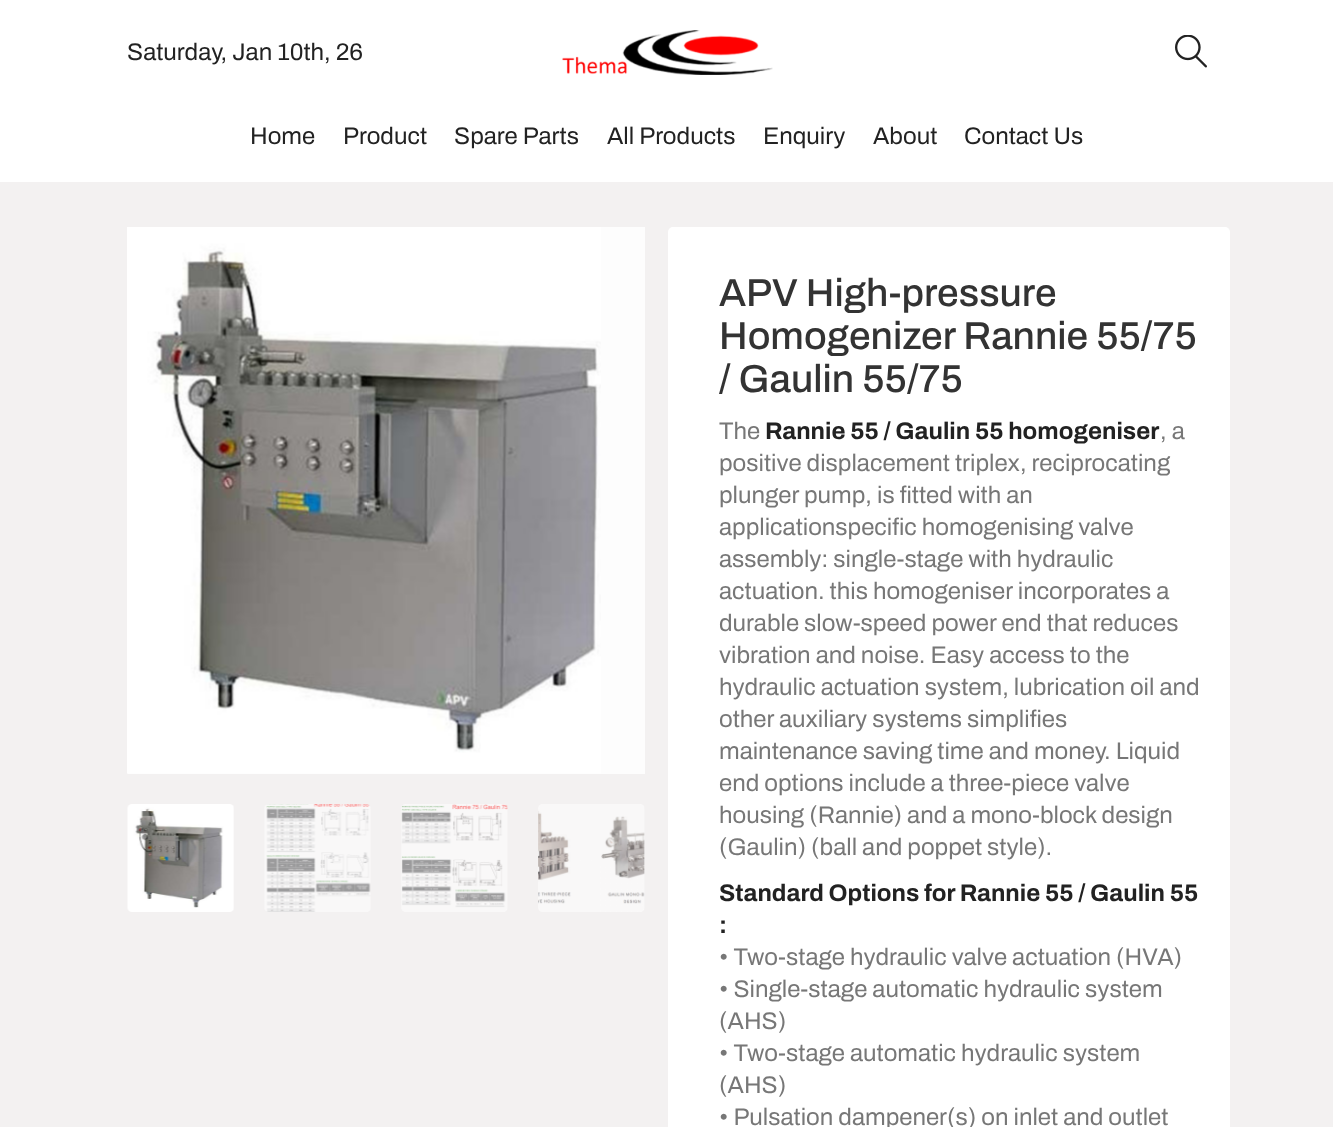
async function draw(canvas) {
	canvas.width = 1333;
	canvas.height = 1127;
	const c = canvas.getContext('2d');
	c.miterLimit = 4;
	c.fontKerning = 'normal';
	async function loadImage(src) {
		const img = new Image();
		img.src = src;
		await img.decode();
		return img;
	}

	c.fillStyle = '#f3f1f1';
	c.fillRect(0, 0, 1333, 1127);
	c.fillStyle = '#fff';
	c.fillRect(0, 0, 1333, 182);
	c.font = '24px Archivo';
	c.fillStyle = '#222';
	c.fillText('Saturday, Jan 10th, 26', 127, 60);
	c.drawImage(await loadImage('img1.png'), 562, 30, 211, 45);
	c.drawImage(await loadImage('img2.png'), 1175, 35, 32, 33);
	for (const [text, x, y] of [
		['Home', 250, 144],
		['Product', 343, 144],
		['Spare Parts', 454, 144],
		['All Products', 607, 144],
		['Enquiry', 763, 144],
		['About', 873, 144],
		['Contact Us', 964, 144],
	]) {
		c.fillText(text, x, y);
	}
	c.fillStyle = '#fdfdfd';
	c.fillRect(128, 227, 517, 547);
	c.drawImage(await loadImage('img3.png'), 127, 227, 474, 547);
	c.drawImage(await loadImage('img4.png'), 127, 804, 107, 108);
	c.drawImage(await loadImage('img5.png'), 264, 804, 107, 108);
	c.drawImage(await loadImage('img6.png'), 401, 804, 107, 108);
	c.drawImage(await loadImage('img7.png'), 538, 804, 107, 108);
	c.fillStyle = '#fff';
	c.beginPath();
	c.roundRect(668, 227, 562, 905, 5);
	c.fill();
	c.font = '500 39px Archivo';
	c.fillStyle = '#333';
	for (const [text, x, y] of [
		['APV High-pressure', 719, 306],
		['Homogenizer Rannie 55/75', 719, 349],
		['/ Gaulin 55/75', 719, 392],
	]) {
		c.fillText(text, x, y);
	}
	c.font = '24px Archivo';
	c.fillStyle = '#777';
	c.fillText('The', 719, 439);
	c.font = 'bold 24px Archivo';
	c.fillStyle = '#222';
	c.fillText('Rannie 55 / Gaulin 55 homogeniser', 765, 439);
	c.font = '24px Archivo';
	c.fillStyle = '#777';
	for (const [text, x, y] of [
		[', a', 1160, 439],
		['positive displacement triplex, reciprocating', 719, 471],
		['plunger pump, is fitted with an', 719, 503],
		['applicationspecific homogenising valve', 719, 535],
		['assembly: single-stage with hydraulic', 719, 567],
		['actuation. this homogeniser incorporates a', 719, 599],
		['durable slow-speed power end that reduces', 719, 631],
		['vibration and noise. Easy access to the', 719, 663],
		['hydraulic actuation system, lubrication oil and', 719, 695],
		['other auxiliary systems simplifies', 719, 727],
		['maintenance saving time and money. Liquid', 719, 759],
		['end options include a three-piece valve', 719, 791],
		['housing (Rannie) and a mono-block design', 719, 823],
		['(Gaulin) (ball and poppet style).', 719, 855],
	]) {
		c.fillText(text, x, y);
	}
	c.font = 'bold 24px Archivo';
	c.fillStyle = '#222';
	c.fillText('Standard Options for Rannie 55 / Gaulin 55', 719, 901);
	c.fillText(':', 719, 933);
	c.font = '24px Archivo';
	c.fillStyle = '#777';
	for (const [text, x, y] of [
		['• Two-stage hydraulic valve actuation (HVA)', 719, 965],
		['• Single-stage automatic hydraulic system', 719, 997],
		['(AHS)', 719, 1029],
		['• Two-stage automatic hydraulic system', 719, 1061],
		['(AHS)', 719, 1093],
		['• Pulsation dampener(s) on inlet and outlet', 719, 1125],
	]) {
		c.fillText(text, x, y);
	}
}

draw(document.querySelector('canvas'));
